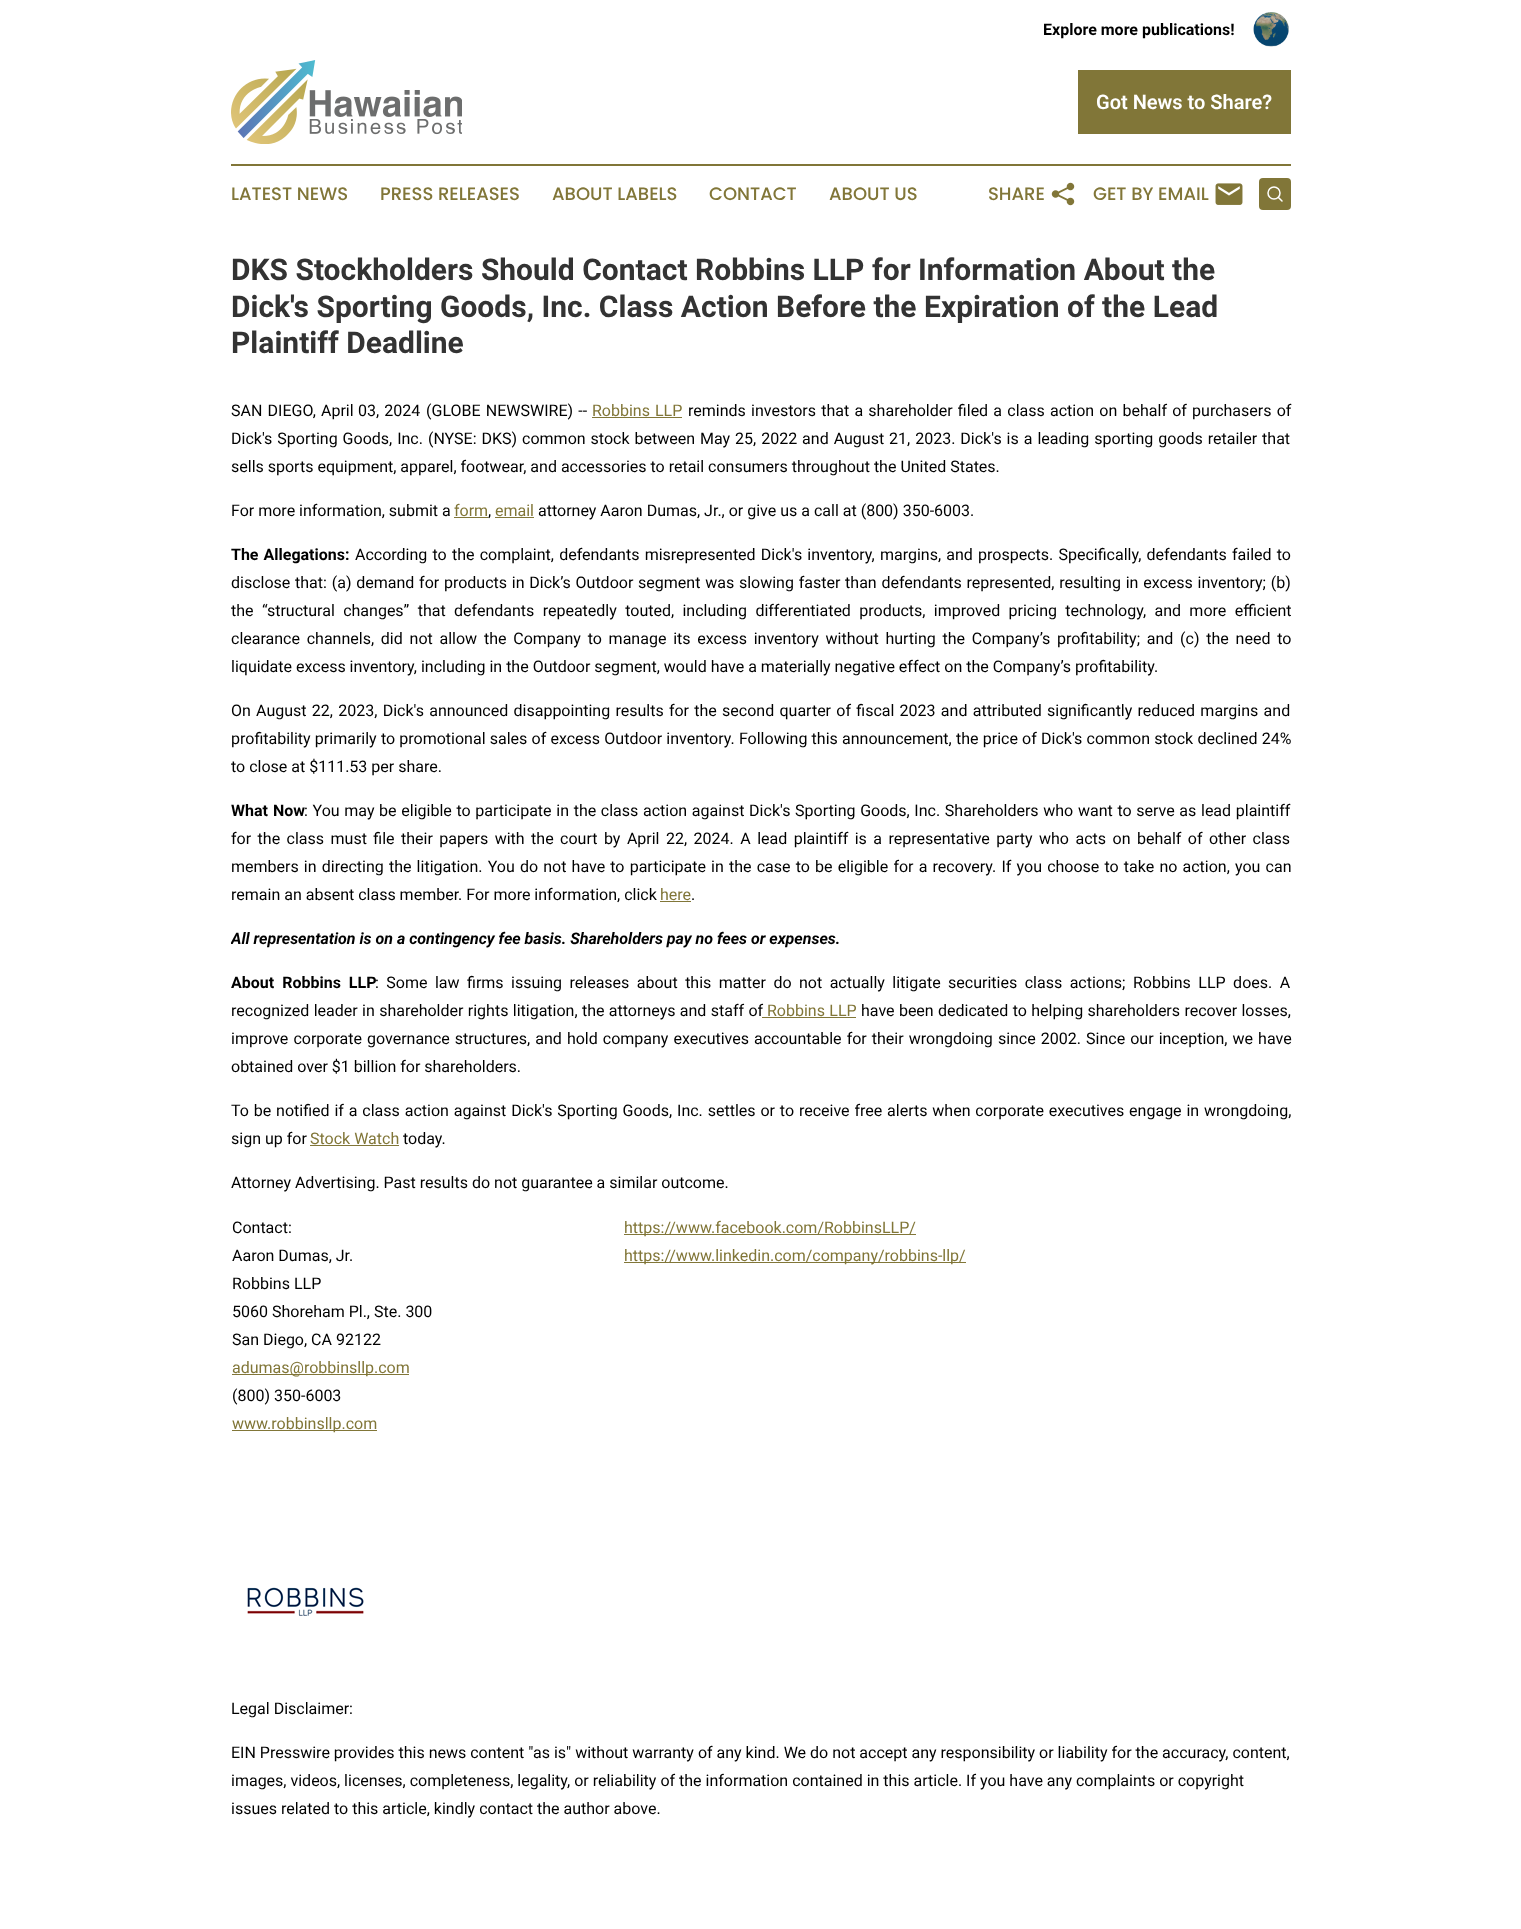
async function draw(canvas) {
	canvas.width = 1521;
	canvas.height = 1929;
	const c = canvas.getContext('2d');
	c.miterLimit = 4;
	c.fontKerning = 'normal';
	async function loadImage(src) {
		const img = new Image();
		img.src = src;
		await img.decode();
		return img;
	}

	c.fillStyle = '#fff';
	c.fillRect(0, 0, 1521, 1929);
	c.font = 'bold 16px Roboto';
	c.fillStyle = '#000';
	c.fillText('Explore more publications!', 1043, 35);
	c.drawImage(await loadImage('img1.png'), 1253, 12, 36, 35);
	c.drawImage(await loadImage('img2.png'), 231, 60, 231, 84);
	c.fillStyle = '#817638';
	c.fillRect(1078, 70, 213, 64);
	c.font = '600 20px Roboto';
	c.fillStyle = '#fff';
	c.fillText('Got News to Share?', 1096, 109);
	c.fillStyle = '#817638';
	c.fillRect(231, 164, 1060, 2);
	c.font = '500 18px Poppins';
	for (const [text, x, y] of [
		['LATEST NEWS', 231, 200],
		['PRESS RELEASES', 380, 200],
		['ABOUT LABELS', 552, 200],
		['CONTACT', 709, 200],
		['ABOUT US', 829, 200],
		['SHARE', 988, 200],
	]) {
		c.fillText(text, x, y);
	}
	c.drawImage(await loadImage('img3.png'), 1051, 182, 24, 24);
	c.fillText('GET BY EMAIL', 1093, 200);
	c.drawImage(await loadImage('img4.png'), 1215, 183, 28, 22);
	c.beginPath();
	c.roundRect(1259, 178, 32, 32, 4);
	c.fill();
	c.beginPath();
	c.arc(1274, 193, 6, 0, 2 * Math.PI);
	c.strokeStyle = '#fff';
	c.lineWidth = 1.5;
	c.stroke();
	c.beginPath();
	c.moveTo(1282, 201);
	c.lineTo(1278.5, 197.5);
	c.lineCap = 'round';
	c.lineJoin = 'round';
	c.stroke();
	c.font = 'bold 30px Roboto';
	c.fillStyle = '#333';
	for (const [text, x, y] of [
		['DKS Stockholders Should Contact Robbins LLP for Information About the', 231, 280],
		['Dick\'s Sporting Goods, Inc. Class Action Before the Expiration of the Lead', 231, 317],
		['Plaintiff Deadline', 231, 353],
	]) {
		c.fillText(text, x, y);
	}
	c.wordSpacing = '1.25px';
	c.font = '16px Roboto';
	c.fillStyle = '#000';
	for (const [text, x, y] of [
		['SAN DIEGO, April', 231, 416],
		['03, 2024', 358, 416],
		['(GLOBE NEWSWIRE) --', 426, 416],
	]) {
		c.fillText(text, x, y);
	}
	c.wordSpacing = '1px';
	c.fillStyle = '#817638';
	c.fillText('Robbins LLP', 592, 416);
	c.fillRect(592, 417, 90, 1);
	c.wordSpacing = '1.25px';
	c.fillStyle = '#000';
	c.fillText('reminds investors that a shareholder filed a class action on behalf of purchasers of', 688, 416);
	c.wordSpacing = '1px';
	c.fillText('Dick\'s Sporting Goods, Inc. (NYSE: DKS) common stock between May 25, 2022 and August 21, 2023. Dick\'s is a leading sporting goods retailer that', 231, 444);
	c.wordSpacing = '0px';
	c.fillText('sells sports equipment, apparel, footwear, and accessories to retail consumers throughout the United States.', 231, 472);
	c.fillText('For more information, submit a', 231, 516);
	c.fillStyle = '#817638';
	c.fillText('form', 454, 516);
	c.fillRect(454, 517, 34, 1);
	c.fillStyle = '#000';
	c.fillText(',', 488, 516);
	c.fillStyle = '#817638';
	c.fillText('email', 495, 516);
	c.fillRect(495, 517, 39, 1);
	c.fillStyle = '#000';
	c.fillText('attorney Aaron Dumas, Jr., or give us a call at (800) 350-6003.', 538, 516);
	c.save();
	c.beginPath();
	c.rect(231, 381, 1060, 1459);
	c.clip();
	c.wordSpacing = '1px';
	c.font = 'bold 16px Roboto';
	c.fillText('The Allegations:', 231, 560);
	c.restore();
	c.wordSpacing = '1.25px';
	c.fillText('According to the complaint, defendants misrepresented Dick\'s inventory, margins, and prospects. Specifically, defendants failed to', 355, 560);
	c.wordSpacing = '0.8px';
	c.fillText('disclose that: (a) demand for products in Dick’s Outdoor segment was slowing faster than defendants represented, resulting in excess inventory; (b)', 231, 588);
	c.wordSpacing = '4.4px';
	c.fillText('the “structural changes” that defendants repeatedly touted, including differentiated products, improved pricing technology, and more efficient', 231, 616);
	c.wordSpacing = '2.8px';
	c.fillText('clearance channels, did not allow the Company to manage its excess inventory without hurting the Company’s profitability; and (c) the need to', 231, 644);
	c.wordSpacing = '0px';
	c.fillText('liquidate excess inventory, including in the Outdoor segment, would have a materially negative effect on the Company’s profitability.', 231, 672);
	c.wordSpacing = '1.3px';
	c.fillText('On August 22, 2023, Dick\'s announced disappointing results for the second quarter of fiscal 2023 and attributed significantly reduced margins and', 231, 716);
	c.wordSpacing = '0.25px';
	c.fillText('profitability primarily to promotional sales of excess Outdoor inventory. Following this announcement, the price of Dick\'s common stock declined 24%', 231, 744);
	c.wordSpacing = '0px';
	c.fillText('to close at $111.53 per share.', 231, 772);
	c.wordSpacing = '1px';
	c.font = 'bold 16px Roboto';
	c.fillText('What Now', 231, 816);
	c.wordSpacing = '0.7px';
	c.font = '16px Roboto';
	c.fillText(': You may be eligible to participate in the class action against Dick\'s Sporting Goods, Inc. Shareholders who want to serve as lead plaintiff', 304, 816);
	c.wordSpacing = '2.5px';
	c.fillText('for the class must file their papers with the court by April 22, 2024. A lead plaintiff is a representative party who acts on behalf of other class', 231, 844);
	c.wordSpacing = '1.2px';
	c.fillText('members in directing the litigation. You do not have to participate in the case to be eligible for a recovery. If you choose to take no action, you can', 231, 872);
	c.wordSpacing = '0px';
	c.fillText('remain an absent class member. For more information, click', 231, 900);
	c.fillStyle = '#817638';
	c.fillText('here', 660, 900);
	c.fillRect(660, 901, 31, 1);
	c.fillStyle = '#000';
	c.fillText('.', 691, 900);
	c.save();
	c.beginPath();
	c.rect(231, 381, 1060, 1459);
	c.clip();
	c.font = 'italic bold 16px Roboto';
	c.fillText('All representation is on a contingency fee basis. Shareholders pay no fees or expenses.', 231, 944);
	c.restore();
	c.wordSpacing = '4px';
	c.font = 'bold 16px Roboto';
	c.fillText('About Robbins LLP', 231, 988);
	c.wordSpacing = '3.5px';
	c.font = '16px Roboto';
	c.fillText(': Some law firms issuing releases about this matter do not actually litigate securities class actions; Robbins LLP does. A', 375, 988);
	c.wordSpacing = '0.4px';
	c.fillText('recognized leader in shareholder rights litigation, the attorneys and staff of', 231, 1016);
	c.fillStyle = '#817638';
	c.fillText('Robbins LLP', 767, 1016);
	c.fillRect(762, 1017, 94, 1);
	c.fillStyle = '#000';
	c.fillText('have been dedicated to helping shareholders recover losses,', 861, 1016);
	c.wordSpacing = '1.1px';
	c.fillText('improve corporate governance structures, and hold company executives accountable for their wrongdoing since 2002. Since our inception, we have', 231, 1044);
	c.wordSpacing = '0px';
	c.fillText('obtained over $1 billion for shareholders.', 231, 1072);
	c.wordSpacing = '0.9px';
	c.fillText('To be notified if a class action against Dick\'s Sporting Goods, Inc. settles or to receive free alerts when corporate executives engage in wrongdoing,', 231, 1116);
	c.wordSpacing = '0px';
	c.fillText('sign up for', 231, 1144);
	c.fillStyle = '#817638';
	c.fillText('Stock Watch', 310, 1144);
	c.fillRect(310, 1145, 89, 1);
	c.fillStyle = '#000';
	for (const [text, x, y] of [
		['today.', 403, 1144],
		['Attorney Advertising. Past results do not guarantee a similar outcome.', 231, 1188],
		['Contact:', 232, 1233],
		['Aaron Dumas, Jr.', 232, 1261],
		['Robbins LLP', 232, 1289],
		['5060 Shoreham Pl., Ste. 300', 232, 1317],
		['San Diego, CA 92122', 232, 1345],
	]) {
		c.fillText(text, x, y);
	}
	c.fillStyle = '#817638';
	c.fillRect(232, 1374, 177, 1);
	c.fillText('adumas@robbinsllp.com', 232, 1373);
	c.fillStyle = '#000';
	c.fillText('(800) 350-6003', 232, 1401);
	c.fillStyle = '#817638';
	c.fillRect(232, 1430, 145, 1);
	c.fillText('www.robbinsllp.com', 232, 1429);
	c.fillRect(624, 1234, 292, 1);
	c.fillText('https://www.facebook.com/RobbinsLLP/', 624, 1233);
	c.fillRect(624, 1262, 342, 1);
	c.fillText('https://www.linkedin.com/company/robbins-llp/', 624, 1261);
	c.drawImage(await loadImage('img5.png'), 247, 1587, 117, 29);
	c.fillStyle = '#000';
	for (const [text, x, y] of [
		['Legal Disclaimer:', 231, 1714],
		['EIN Presswire provides this news content "as is" without warranty of any kind. We do not accept any responsibility or liability for the accuracy, content,', 231, 1758],
		['images, videos, licenses, completeness, legality, or reliability of the information contained in this article. If you have any complaints or copyright', 231, 1786],
		['issues related to this article, kindly contact the author above.', 231, 1814],
	]) {
		c.fillText(text, x, y);
	}
}

draw(document.querySelector('canvas'));
